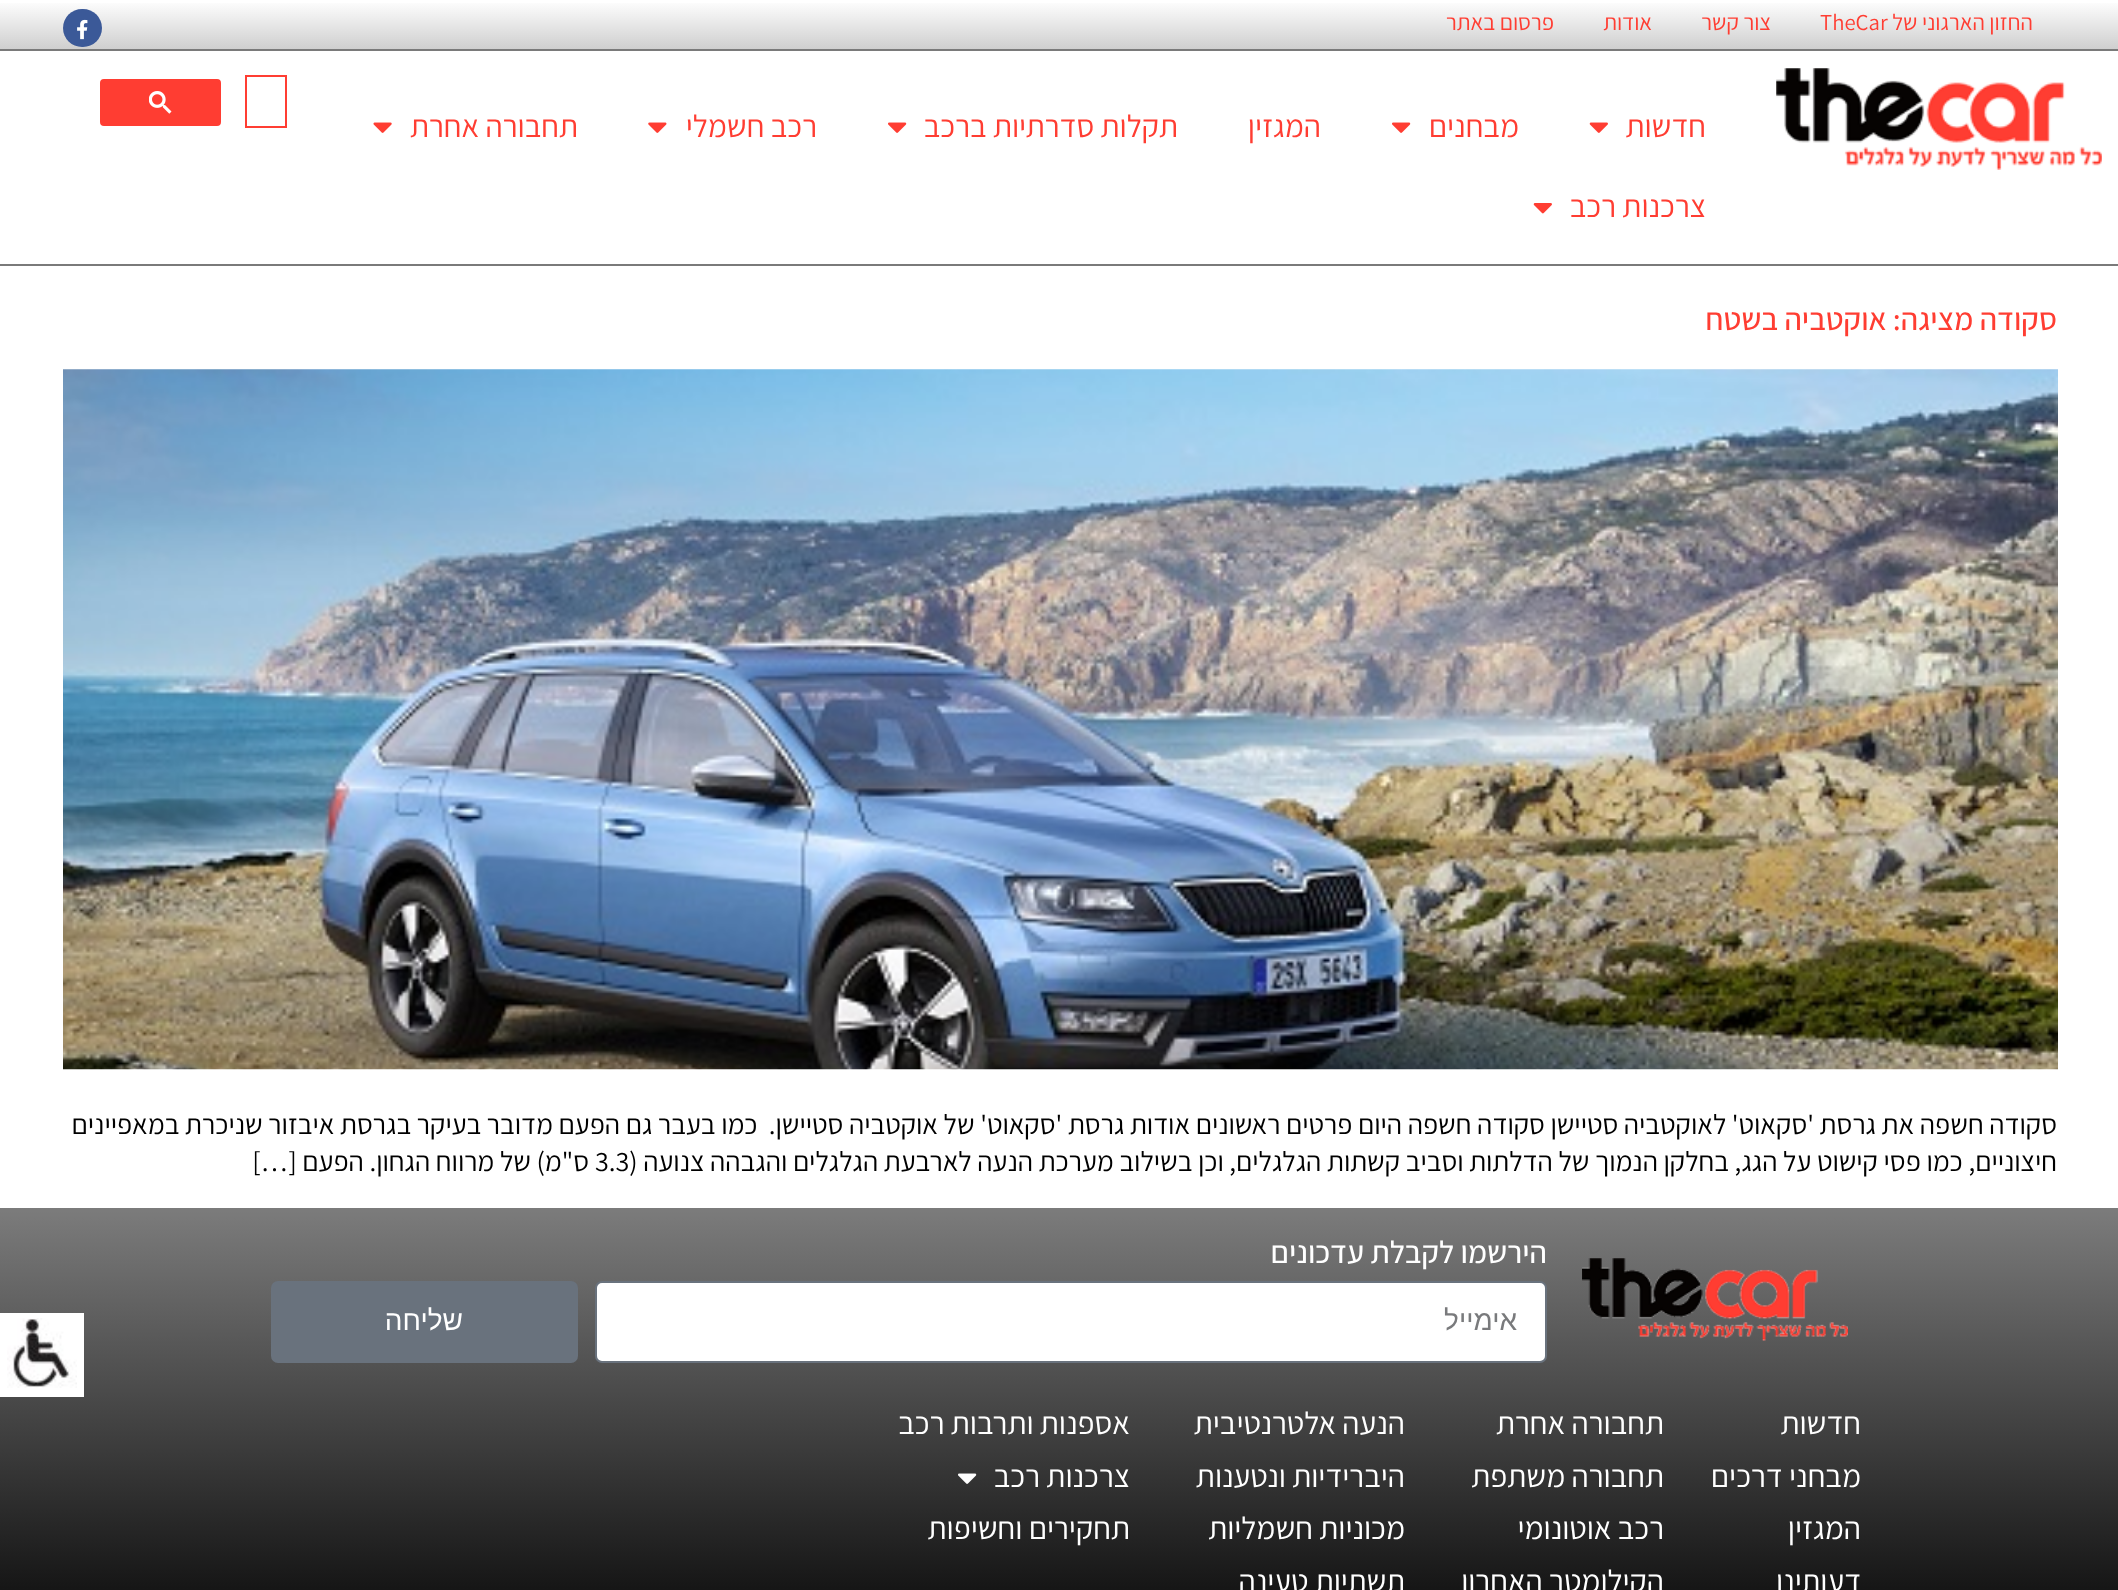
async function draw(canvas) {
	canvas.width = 2118;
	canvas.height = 1590;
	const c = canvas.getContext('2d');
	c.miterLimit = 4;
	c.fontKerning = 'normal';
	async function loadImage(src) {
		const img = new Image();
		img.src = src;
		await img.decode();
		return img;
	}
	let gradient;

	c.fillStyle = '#fff';
	c.fillRect(0, 0, 2118, 1590);
	gradient = c.createLinearGradient(1060, 0, 1060, 49);
	gradient.addColorStop(0, '#fff');
	gradient.addColorStop(1, '#cfcfcf');
	c.fillStyle = gradient;
	c.fillRect(0, 3, 2118, 46);
	c.direction = 'rtl';
	c.font = '22.75px Assistant';
	c.fillStyle = '#ff3d32';
	c.fillText('החזון הארגוני של', 2033, 30);
	c.direction = 'ltr';
	c.fillText('TheCar', 1820, 30);
	c.direction = 'rtl';
	for (const [text, x, y] of [
		['צור קשר', 1771, 30],
		['אודות', 1652, 30],
		['פרסום באתר', 1554, 30],
	]) {
		c.fillText(text, x, y);
	}
	c.fillStyle = '#3b5998';
	c.beginPath();
	c.roundRect(63, 9, 39, 38, 19);
	c.fill();
	c.drawImage(await loadImage('img1.png'), 77, 19, 11, 21);
	c.fillStyle = '#7a7a7a';
	c.fillRect(0, 49, 2118, 2);
	c.fillRect(0, 264, 2118, 2);
	c.drawImage(await loadImage('img2.png'), 1776, 68, 326, 102);
	c.strokeStyle = '#ff3d32';
	c.lineWidth = 2;
	c.strokeRect(246, 76, 40, 51);
	c.fillStyle = '#ff3d32';
	c.beginPath();
	c.roundRect(101, 80, 119, 45, 3);
	c.fill();
	c.stroke();
	c.drawImage(await loadImage('img3.png'), 149, 91, 23, 23);
	c.font = '31.5px Assistant';
	c.fillText('חדשות', 1706, 137);
	c.drawImage(await loadImage('img4.png'), 1589, 122, 19, 11);
	c.fillText('מבחנים', 1519, 137);
	c.drawImage(await loadImage('img5.png'), 1392, 122, 19, 11);
	c.fillText('המגזין', 1321, 137);
	c.fillText('תקלות סדרתיות ברכב', 1178, 137);
	c.drawImage(await loadImage('img5.png'), 888, 122, 19, 11);
	c.fillText('רכב חשמלי', 817, 137);
	c.drawImage(await loadImage('img6.png'), 648, 122, 19, 11);
	c.fillText('תחבורה אחרת', 578, 137);
	c.drawImage(await loadImage('img7.png'), 373, 122, 19, 11);
	c.fillText('צרכנות רכב', 1706, 217);
	c.drawImage(await loadImage('img8.png'), 1533, 203, 19, 11);
	c.font = '500 31.5px Assistant';
	c.fillText('סקודה מציגה: אוקטביה בשטח', 2057, 330);
	c.drawImage(await loadImage('img9.png'), 63, 369, 1995, 701);
	c.font = '28px Assistant';
	c.fillStyle = '#000';
	c.fillText('סקודה חשפה את גרסת \'סקאוט\' לאוקטביה סטיישן סקודה חשפה היום פרטים ראשונים אודות גרסת \'סקאוט\' של אוקטביה סטיישן.  כמו בעבר גם הפעם מדובר בעיקר בגרסת איבזור שניכרת במאפיינים', 2057, 1134);
	c.fillText('חיצוניים, כמו פסי קישוט על הגג, בחלקן הנמוך של הדלתות וסביב קשתות הגלגלים, וכן בשילוב מערכת הנעה לארבעת הגלגלים והגבהה צנועה (', 2057, 1171);
	c.direction = 'ltr';
	c.fillText('3.3', 595, 1171);
	c.direction = 'rtl';
	c.fillText('ס"מ) של מרווח הגחון. הפעם […]', 589, 1171);
	gradient = c.createLinearGradient(1060, 1207, 1060, 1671);
	gradient.addColorStop(0, '#7c7c7c');
	gradient.addColorStop(1, '#000');
	c.fillStyle = gradient;
	c.fillRect(0, 1208, 2118, 382);
	c.drawImage(await loadImage('img10.png'), 1582, 1258, 266, 83);
	c.font = '500 31.5px Assistant';
	c.fillStyle = '#fff';
	c.fillText('הירשמו לקבלת עדכונים', 1547, 1263);
	c.beginPath();
	c.roundRect(596, 1282, 950, 80, 6);
	c.fill();
	c.strokeStyle = '#69727d';
	c.stroke();
	c.font = '28px Liberation Sans';
	c.fillStyle = '#797a7c';
	c.fillText('אימייל', 1517, 1330);
	c.fillStyle = '#69727d';
	c.beginPath();
	c.roundRect(271, 1281, 307, 82, 7);
	c.fill();
	c.fillStyle = '#fff';
	c.fillText('שליחה', 463, 1330);
	c.font = '31.5px Assistant';
	for (const [text, x, y] of [
		['חדשות', 1861, 1434],
		['מבחני דרכים', 1861, 1487],
		['המגזין', 1861, 1539],
		['דעותינו', 1861, 1592],
		['תחבורה אחרת', 1664, 1434],
		['תחבורה משתפת', 1664, 1487],
		['רכב אוטונומי', 1664, 1539],
		['הקילומטר האחרון', 1664, 1592],
		['הנעה אלטרנטיבית', 1405, 1434],
		['היברידיות ונטענות', 1405, 1487],
		['מכוניות חשמליות', 1405, 1539],
		['תשתיות טעינה', 1405, 1592],
		['אספנות ותרבות רכב', 1130, 1434],
		['צרכנות רכב', 1130, 1487],
	]) {
		c.fillText(text, x, y);
	}
	c.drawImage(await loadImage('img11.png'), 958, 1473, 19, 11);
	c.fillText('תחקירים וחשיפות', 1130, 1539);
	c.fillRect(0, 1313, 84, 84);
	c.drawImage(await loadImage('img12.png'), 7, 1318, 70, 70);
}

draw(document.querySelector('canvas'));
